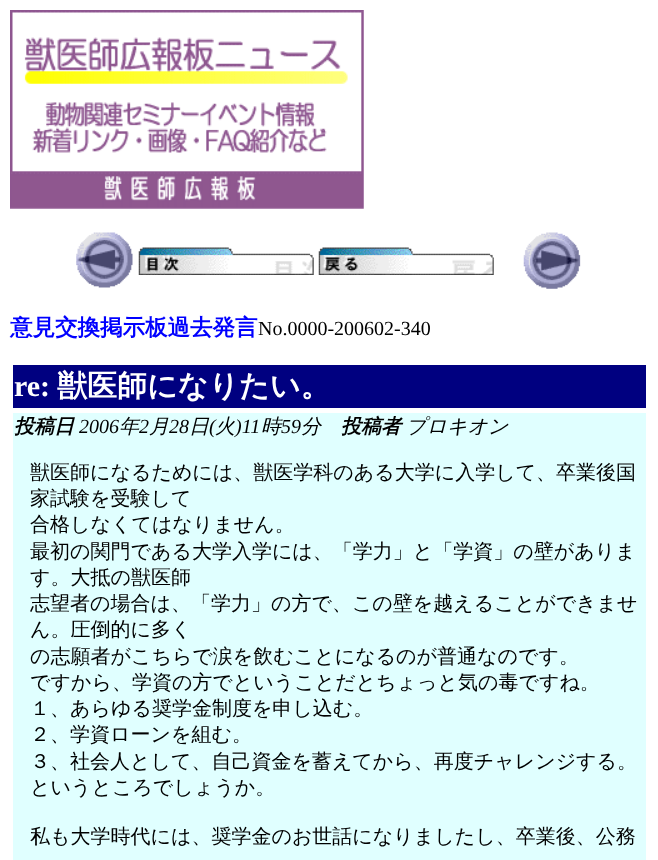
async function draw(canvas) {
	canvas.width = 658;
	canvas.height = 860;
	const c = canvas.getContext('2d');
	c.miterLimit = 4;
	c.fontKerning = 'normal';
	async function loadImage(src) {
		const img = new Image();
		img.src = src;
		await img.decode();
		return img;
	}

	c.fillStyle = '#fff';
	c.fillRect(0, 0, 658, 860);
	c.drawImage(await loadImage('img1.png'), 10, 10, 354, 199);
	c.drawImage(await loadImage('img2.png'), 76, 232, 57, 56);
	c.drawImage(await loadImage('img3.png'), 138, 247, 176, 28);
	c.drawImage(await loadImage('img4.png'), 318, 247, 176, 28);
	c.drawImage(await loadImage('img5.png'), 523, 232, 58, 57);
	c.font = 'bold 22.5px WenQuanYi Zen Hei';
	c.fillStyle = '#00f';
	c.fillText('意見交換掲示板過去発言', 10, 335);
	c.font = '20px Liberation Serif';
	c.fillStyle = '#000';
	c.fillText('No.0000-200602-340', 258, 335);
	c.fillStyle = '#000080';
	c.fillRect(13, 365, 633, 43);
	c.font = 'bold 30px Liberation Serif';
	c.fillStyle = '#fff';
	c.fillText('re:', 14, 396);
	c.font = 'bold 30px WenQuanYi Zen Hei';
	c.fillText('獣医師になりたい。', 57, 396);
	c.fillStyle = '#e0ffff';
	c.fillRect(13, 413, 633, 447);
	c.font = 'italic bold 20px WenQuanYi Zen Hei';
	c.fillStyle = '#000';
	c.fillText('投稿日', 14, 433);
	c.font = 'italic 20px Liberation Serif';
	c.fillText('2006', 79, 433);
	c.font = 'italic 500 20px WenQuanYi Zen Hei';
	c.fillText('年', 119, 433);
	c.font = 'italic 20px Liberation Serif';
	c.fillText('2', 139, 433);
	c.font = 'italic 500 20px WenQuanYi Zen Hei';
	c.fillText('月', 149, 433);
	c.font = 'italic 20px Liberation Serif';
	c.fillText('28', 169, 433);
	c.font = 'italic 500 20px WenQuanYi Zen Hei';
	c.fillText('日', 189, 433);
	c.font = 'italic 20px Liberation Serif';
	c.fillText('(', 209, 433);
	c.font = 'italic 500 20px WenQuanYi Zen Hei';
	c.fillText('火', 215, 433);
	c.font = 'italic 20px Liberation Serif';
	c.fillText(')11', 235, 433);
	c.font = 'italic 500 20px WenQuanYi Zen Hei';
	c.fillText('時', 261, 433);
	c.font = 'italic 20px Liberation Serif';
	c.fillText('59', 281, 433);
	c.font = 'italic 500 20px WenQuanYi Zen Hei';
	c.fillText('分', 301, 433);
	c.font = 'italic bold 20px WenQuanYi Zen Hei';
	c.fillText('投稿者', 341, 433);
	c.font = 'italic 500 20px WenQuanYi Zen Hei';
	c.fillText('プロキオン', 406, 433);
	c.font = '500 20px WenQuanYi Zen Hei';
	for (const [text, x, y] of [
		['獣医師になるためには、獣医学科のある大学に入学して、卒業後国', 30, 479],
		['家試験を受験して', 30, 505],
		['合格しなくてはなりません。', 30, 531],
		['最初の関門である大学入学には、「学力」と「学資」の壁がありま', 30, 558],
		['す。大抵の獣医師', 30, 584],
		['志望者の場合は、「学力」の方で、この壁を越えることができませ', 30, 610],
		['ん。圧倒的に多く', 30, 636],
		['の志願者がこちらで涙を飲むことになるのが普通なのです。', 30, 663],
		['ですから、学資の方でということだとちょっと気の毒ですね。', 30, 689],
		['１、あらゆる奨学金制度を申し込む。', 30, 715],
		['２、学資ローンを組む。', 30, 741],
		['３、社会人として、自己資金を蓄えてから、再度チャレンジする。', 30, 768],
		['というところでしょうか。', 30, 794],
		['私も大学時代には、奨学金のお世話になりましたし、卒業後、公務', 30, 843],
	]) {
		c.fillText(text, x, y);
	}
}

draw(document.querySelector('canvas'));
